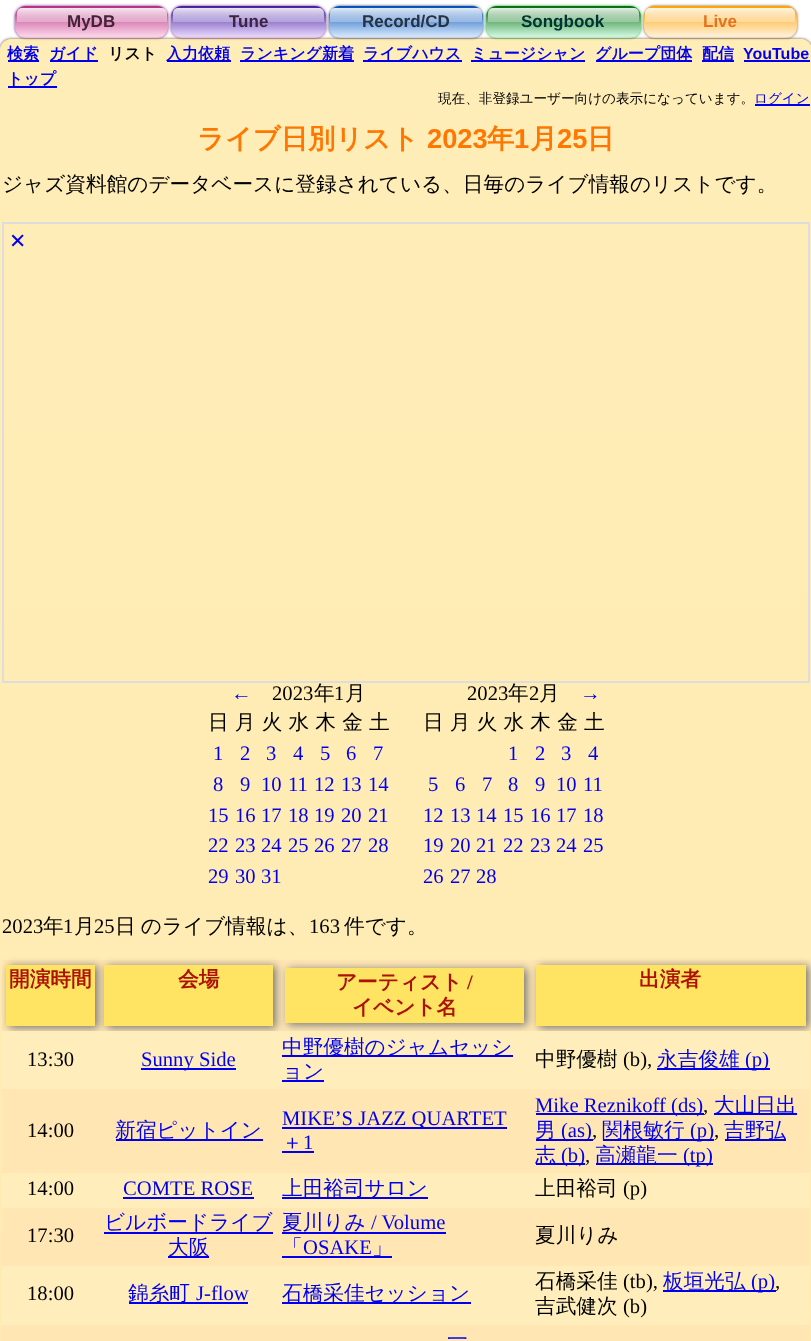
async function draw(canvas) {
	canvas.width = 811;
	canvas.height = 1341;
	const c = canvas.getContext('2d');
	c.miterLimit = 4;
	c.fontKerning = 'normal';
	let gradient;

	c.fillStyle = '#fff';
	c.fillRect(0, 0, 811, 1341);
	c.fillStyle = '#6c268a';
	c.filter = 'blur(1.5px)';
	c.beginPath();
	c.roundRect(15, 6, 153, 32, 11);
	c.fill();
	c.filter = 'none';
	gradient = c.createLinearGradient(92, 6, 92, 38);
	gradient.addColorStop(0, '#b72e80');
	gradient.addColorStop(1, '#ffdeef');
	c.fillStyle = gradient;
	c.beginPath();
	c.roundRect(15, 6, 153, 32, 11);
	c.fill();
	gradient = c.createLinearGradient(92, 7.5, 92, 36);
	gradient.addColorStop(0, '#ffffffe6');
	gradient.addColorStop(0.5, '#ffffff4d');
	gradient.addColorStop(0.51, '#ffffff00');
	gradient.addColorStop(1, '#ffffff00');
	c.fillStyle = gradient;
	c.beginPath();
	c.roundRect(17, 8, 150, 28, 5);
	c.fill();
	c.font = 'bold 17px Liberation Sans';
	c.fillStyle = '#432337';
	c.fillText('MyDB', 67, 27);
	c.fillStyle = '#7c267f';
	c.filter = 'blur(1.5px)';
	c.beginPath();
	c.roundRect(171, 6, 155, 32, 11);
	c.fill();
	c.filter = 'none';
	gradient = c.createLinearGradient(248, 6, 248, 38);
	gradient.addColorStop(0, '#40209f');
	gradient.addColorStop(1, '#f0deff');
	c.fillStyle = gradient;
	c.beginPath();
	c.roundRect(171, 6, 155, 32, 11);
	c.fill();
	gradient = c.createLinearGradient(248, 7.5, 248, 36);
	gradient.addColorStop(0, '#ffffffe6');
	gradient.addColorStop(0.5, '#ffffff4d');
	gradient.addColorStop(0.51, '#ffffff00');
	gradient.addColorStop(1, '#ffffff00');
	c.fillStyle = gradient;
	c.beginPath();
	c.roundRect(173, 8, 151, 28, 5);
	c.fill();
	c.fillStyle = '#402342';
	c.fillText('Tune', 229, 27);
	c.fillStyle = '#2a466c';
	c.filter = 'blur(1.5px)';
	c.beginPath();
	c.roundRect(329, 6, 154, 32, 11);
	c.fill();
	c.filter = 'none';
	gradient = c.createLinearGradient(406, 6, 406, 38);
	gradient.addColorStop(0, '#004eb7');
	gradient.addColorStop(1, '#dfeeff');
	c.fillStyle = gradient;
	c.beginPath();
	c.roundRect(329, 6, 154, 32, 11);
	c.fill();
	gradient = c.createLinearGradient(406, 7.5, 406, 36);
	gradient.addColorStop(0, '#ffffffe6');
	gradient.addColorStop(0.5, '#ffffff4d');
	gradient.addColorStop(0.51, '#ffffff00');
	gradient.addColorStop(1, '#ffffff00');
	c.fillStyle = gradient;
	c.beginPath();
	c.roundRect(330, 8, 152, 28, 5);
	c.fill();
	c.fillStyle = '#273343';
	c.fillText('Record/CD', 362, 27);
	c.fillStyle = '#0aac26';
	c.filter = 'blur(1.5px)';
	c.beginPath();
	c.roundRect(486, 6, 155, 32, 11);
	c.fill();
	c.filter = 'none';
	gradient = c.createLinearGradient(563, 6, 563, 38);
	gradient.addColorStop(0, '#066a0d');
	gradient.addColorStop(1, '#d8ffe9');
	c.fillStyle = gradient;
	c.beginPath();
	c.roundRect(486, 6, 155, 32, 11);
	c.fill();
	gradient = c.createLinearGradient(563, 7.5, 563, 36);
	gradient.addColorStop(0, '#ffffffe6');
	gradient.addColorStop(0.5, '#ffffff4d');
	gradient.addColorStop(0.51, '#ffffff00');
	gradient.addColorStop(1, '#ffffff00');
	c.fillStyle = gradient;
	c.beginPath();
	c.roundRect(488, 8, 151, 28, 5);
	c.fill();
	c.fillStyle = '#033';
	c.fillText('Songbook', 521, 27);
	c.fillStyle = '#7c5a26';
	c.filter = 'blur(1.5px)';
	c.beginPath();
	c.roundRect(644, 6, 153, 32, 11);
	c.fill();
	c.filter = 'none';
	gradient = c.createLinearGradient(720, 6, 720, 38);
	gradient.addColorStop(0, '#ffa200');
	gradient.addColorStop(1, '#fff5e4');
	c.fillStyle = gradient;
	c.beginPath();
	c.roundRect(644, 6, 153, 32, 11);
	c.fill();
	gradient = c.createLinearGradient(720, 7.5, 720, 36);
	gradient.addColorStop(0, '#ffffffe6');
	gradient.addColorStop(0.5, '#ffffff4d');
	gradient.addColorStop(0.51, '#ffffff00');
	gradient.addColorStop(1, '#ffffff00');
	c.fillStyle = gradient;
	c.beginPath();
	c.roundRect(645, 8, 150, 28, 5);
	c.fill();
	c.fillStyle = '#e37323';
	c.fillText('Live', 703, 27);
	c.save();
	c.beginPath();
	c.moveTo(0, 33);
	c.lineTo(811, 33);
	c.lineTo(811, 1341);
	c.lineTo(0, 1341);
	c.closePath();
	c.moveTo(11, 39);
	c.lineTo(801, 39);
	c.bezierCurveTo(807, 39, 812, 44, 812, 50);
	c.lineTo(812, 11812);
	c.bezierCurveTo(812, 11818, 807, 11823, 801, 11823);
	c.lineTo(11, 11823);
	c.bezierCurveTo(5, 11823, 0, 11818, 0, 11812);
	c.lineTo(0, 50);
	c.bezierCurveTo(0, 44, 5, 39, 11, 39);
	c.closePath();
	c.clip('evenodd');
	c.fillStyle = '#6c462a';
	c.filter = 'blur(1.5px)';
	c.beginPath();
	c.roundRect(0, 39, 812, 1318, 11);
	c.fill();
	c.filter = 'none';
	c.restore();
	gradient = c.createLinearGradient(406, 39, 406, 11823);
	gradient.addColorStop(0, '#ffc4144d');
	gradient.addColorStop(0, '#ffc4141a');
	gradient.addColorStop(0, '#ffc4144d');
	gradient.addColorStop(1, '#ffe297b3');
	c.fillStyle = gradient;
	c.beginPath();
	c.roundRect(0, 39, 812, 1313, 11);
	c.fill();
	c.fillStyle = '#00e';
	c.fillRect(8, 60, 31, 2);
	c.font = 'bold 16px WenQuanYi Zen Hei';
	c.fillText('検索', 7, 59);
	c.fillRect(50, 60, 48, 2);
	c.fillText('ガイド', 49, 59);
	c.fillStyle = '#000';
	c.fillText('リスト', 108, 59);
	c.fillStyle = '#00e';
	c.fillRect(167, 60, 64, 2);
	c.fillText('入力依頼', 166, 59);
	c.fillRect(240, 60, 114, 2);
	c.fillText('ランキング新着', 240, 59);
	c.fillRect(363, 60, 99, 2);
	c.fillText('ライブハウス', 363, 59);
	c.fillRect(471, 60, 114, 2);
	c.fillText('ミュージシャン', 471, 59);
	c.fillRect(596, 60, 96, 2);
	c.fillText('グループ団体', 595, 59);
	c.fillRect(702, 60, 32, 2);
	c.fillText('配信', 702, 59);
	c.font = 'bold 16px Liberation Sans';
	c.fillText('YouTube', 743, 59);
	c.fillRect(744, 60, 66, 2);
	c.font = 'bold 16px WenQuanYi Zen Hei';
	c.fillText('トップ', 7, 84);
	c.fillRect(8, 86, 49, 2);
	c.font = '500 13.6px WenQuanYi Zen Hei';
	c.fillStyle = '#000';
	c.fillText('現在、非登録ユーザー向けの表示になっています。', 438, 103);
	c.fillStyle = '#00e';
	c.fillRect(755, 104, 55, 2);
	c.fillText('ログイン', 754, 103);
	c.font = 'bold 27.25px WenQuanYi Zen Hei';
	c.fillStyle = '#f70';
	c.fillText('ライブ日別リスト', 197, 148);
	c.font = 'bold 27.25px Liberation Sans';
	c.fillText('2023', 427, 148);
	c.font = 'bold 27.25px WenQuanYi Zen Hei';
	c.fillText('年', 487, 148);
	c.font = 'bold 27.25px Liberation Sans';
	c.fillText('1', 514, 148);
	c.font = 'bold 27.25px WenQuanYi Zen Hei';
	c.fillText('月', 530, 148);
	c.font = 'bold 27.25px Liberation Sans';
	c.fillText('25', 557, 148);
	c.font = 'bold 27.25px WenQuanYi Zen Hei';
	c.fillText('日', 587, 148);
	c.font = '500 20.65px WenQuanYi Zen Hei';
	c.fillStyle = '#000';
	c.fillText('ジャズ資料館のデータベースに登録されている、日毎のライブ情報のリストです。', 2, 191);
	c.strokeStyle = '#ddd';
	c.lineWidth = 2;
	c.strokeRect(3, 223, 806, 459);
	c.font = '20.65px DejaVu Sans';
	c.fillStyle = '#00e';
	c.fillText('✕', 9, 248);
	c.font = '20.65px Liberation Serif';
	c.fillText('←', 231, 700);
	c.fillStyle = '#000';
	c.fillText('2023', 272, 700);
	c.font = '500 20.65px WenQuanYi Zen Hei';
	c.fillText('年', 314, 700);
	c.font = '20.65px Liberation Serif';
	c.fillText('1', 334, 700);
	c.font = '500 20.65px WenQuanYi Zen Hei';
	c.fillText('月', 345, 700);
	c.fillText('日 月 火 水 木 金 土', 208, 729);
	c.font = '20.65px Liberation Serif';
	c.fillStyle = '#00e';
	for (const [text, x, y] of [
		['1', 213, 760],
		['2', 240, 760],
		['3', 266, 760],
		['4', 293, 760],
		['5', 320, 760],
		['6', 346, 760],
		['7', 373, 760],
		['8', 213, 791],
		['9', 240, 791],
		['10', 261, 791],
		['11', 288, 791],
		['12', 314, 791],
		['13', 341, 791],
		['14', 368, 791],
		['15', 208, 822],
		['16', 235, 822],
		['17', 261, 822],
		['18', 288, 822],
		['19', 314, 822],
		['20', 341, 822],
		['21', 368, 822],
		['22', 208, 852],
		['23', 235, 852],
		['24', 261, 852],
		['25', 288, 852],
		['26', 314, 852],
		['27', 341, 852],
		['28', 368, 852],
		['29', 208, 883],
		['30', 235, 883],
		['31', 261, 883],
	]) {
		c.fillText(text, x, y);
	}
	c.fillStyle = '#000';
	c.fillText('2023', 467, 700);
	c.font = '500 20.65px WenQuanYi Zen Hei';
	c.fillText('年', 508, 700);
	c.font = '20.65px Liberation Serif';
	c.fillText('2', 529, 700);
	c.font = '500 20.65px WenQuanYi Zen Hei';
	c.fillText('月', 539, 700);
	c.font = '20.65px Liberation Serif';
	c.fillStyle = '#00e';
	c.fillText('→', 580, 700);
	c.font = '500 20.65px WenQuanYi Zen Hei';
	c.fillStyle = '#000';
	c.fillText('日 月 火 水 木 金 土', 423, 729);
	c.font = '20.65px Liberation Serif';
	c.fillStyle = '#00e';
	for (const [text, x, y] of [
		['1', 508, 760],
		['2', 535, 760],
		['3', 561, 760],
		['4', 588, 760],
		['5', 428, 791],
		['6', 455, 791],
		['7', 482, 791],
		['8', 508, 791],
		['9', 535, 791],
		['10', 556, 791],
		['11', 583, 791],
		['12', 423, 822],
		['13', 450, 822],
		['14', 476, 822],
		['15', 503, 822],
		['16', 530, 822],
		['17', 556, 822],
		['18', 583, 822],
		['19', 423, 852],
		['20', 450, 852],
		['21', 476, 852],
		['22', 503, 852],
		['23', 530, 852],
		['24', 556, 852],
		['25', 583, 852],
		['26', 423, 883],
		['27', 450, 883],
		['28', 476, 883],
	]) {
		c.fillText(text, x, y);
	}
	c.fillStyle = '#000';
	c.fillText('2023', 2, 933);
	c.font = '500 20.65px WenQuanYi Zen Hei';
	c.fillText('年', 43, 933);
	c.font = '20.65px Liberation Serif';
	c.fillText('1', 63, 933);
	c.font = '500 20.65px WenQuanYi Zen Hei';
	c.fillText('月', 74, 933);
	c.font = '20.65px Liberation Serif';
	c.fillText('25', 94, 933);
	c.wordSpacing = '-1px';
	c.font = '500 20.65px WenQuanYi Zen Hei';
	c.fillText('日 のライブ情報は、', 115, 933);
	c.wordSpacing = '0px';
	c.font = '20.65px Liberation Serif';
	c.fillText('163', 309, 933);
	c.font = '500 20.65px WenQuanYi Zen Hei';
	c.fillText('件です。', 344, 933);
	c.fillStyle = '#ffe6b2';
	c.fillRect(2, 960, 808, 71);
	c.fillStyle = '#777';
	c.filter = 'blur(4px)';
	c.beginPath();
	c.rect(9, 966, 89, 62);
	c.fill();
	c.filter = 'none';
	c.fillStyle = '#ffe464';
	c.fillRect(6, 965, 89, 61);
	c.font = 'bold 20.65px WenQuanYi Zen Hei';
	c.fillStyle = '#ab1000';
	c.fillText('開演時間', 9, 986);
	c.fillStyle = '#777';
	c.filter = 'blur(4px)';
	c.beginPath();
	c.rect(107, 966, 169, 62);
	c.fill();
	c.filter = 'none';
	c.fillStyle = '#ffe464';
	c.fillRect(104, 965, 169, 61);
	c.fillStyle = '#ab1000';
	c.fillText('会場', 178, 986);
	c.fillStyle = '#777';
	c.filter = 'blur(4px)';
	c.beginPath();
	c.rect(288, 969, 239, 56);
	c.fill();
	c.filter = 'none';
	c.fillStyle = '#ffe464';
	c.fillRect(285, 968, 239, 55);
	c.fillStyle = '#ab1000';
	c.fillText('アーティスト', 336, 989);
	c.font = 'bold 20.65px Liberation Serif';
	c.fillText('/', 467, 989);
	c.font = 'bold 20.65px WenQuanYi Zen Hei';
	c.fillText('イベント名', 352, 1014);
	c.fillStyle = '#777';
	c.filter = 'blur(4px)';
	c.beginPath();
	c.rect(539, 966, 270, 62);
	c.fill();
	c.filter = 'none';
	c.fillStyle = '#ffe464';
	c.fillRect(536, 965, 270, 61);
	c.fillStyle = '#ab1000';
	c.fillText('出演者', 639, 986);
	c.fillStyle = '#ffeebc';
	c.fillRect(2, 1031, 808, 58);
	c.font = '20.65px Liberation Serif';
	c.fillStyle = '#000';
	c.fillText('13:30', 27, 1066);
	c.fillStyle = '#00e';
	c.fillRect(141, 1068, 95, 2);
	c.fillText('Sunny Side', 141, 1066);
	c.fillRect(282, 1055, 231, 2);
	c.font = '500 20.65px WenQuanYi Zen Hei';
	c.fillText('中野優樹のジャムセッシ', 282, 1054);
	c.fillText('ョン', 282, 1078);
	c.fillRect(282, 1080, 42, 2);
	c.fillStyle = '#000';
	c.fillText('中野優樹', 535, 1066);
	c.font = '20.65px Liberation Serif';
	c.fillText('(b),', 623, 1066);
	c.fillStyle = '#00e';
	c.fillRect(657, 1068, 113, 2);
	c.font = '500 20.65px WenQuanYi Zen Hei';
	c.fillText('永吉俊雄', 657, 1066);
	c.font = '20.65px Liberation Serif';
	c.fillText('(p)', 745, 1066);
	c.fillStyle = '#ffe6b2';
	c.fillRect(2, 1089, 808, 84);
	c.fillStyle = '#000';
	c.fillText('14:00', 27, 1137);
	c.fillStyle = '#00e';
	c.fillRect(116, 1139, 147, 2);
	c.font = '500 20.65px WenQuanYi Zen Hei';
	c.fillText('新宿ピットイン', 115, 1137);
	c.fillRect(282, 1127, 225, 2);
	c.font = '20.65px Liberation Serif';
	c.fillText('MIKE’S JAZZ QUARTET', 282, 1125);
	c.font = '500 20.65px WenQuanYi Zen Hei';
	c.fillText('＋', 282, 1149);
	c.fillRect(282, 1151, 32, 2);
	c.font = '20.65px Liberation Serif';
	c.fillText('1', 303, 1149);
	c.fillRect(536, 1113, 168, 2);
	c.fillText('Mike Reznikoff (ds)', 535, 1112);
	c.fillStyle = '#000';
	c.fillText(',', 703, 1112);
	c.fillStyle = '#00e';
	c.fillRect(714, 1113, 83, 2);
	c.font = '500 20.65px WenQuanYi Zen Hei';
	c.fillText('大山日出', 714, 1112);
	c.fillRect(536, 1139, 57, 2);
	c.fillText('男', 535, 1137);
	c.font = '20.65px Liberation Serif';
	c.fillText('(as)', 561, 1137);
	c.fillStyle = '#000';
	c.fillText(',', 592, 1137);
	c.fillStyle = '#00e';
	c.fillRect(603, 1139, 111, 2);
	c.font = '500 20.65px WenQuanYi Zen Hei';
	c.fillText('関根敏行', 602, 1137);
	c.font = '20.65px Liberation Serif';
	c.fillText('(p)', 690, 1137);
	c.fillStyle = '#000';
	c.fillText(',', 714, 1137);
	c.fillStyle = '#00e';
	c.fillRect(725, 1139, 61, 2);
	c.font = '500 20.65px WenQuanYi Zen Hei';
	c.fillText('吉野弘', 724, 1137);
	c.fillRect(536, 1163, 49, 2);
	c.fillText('志', 535, 1162);
	c.font = '20.65px Liberation Serif';
	c.fillText('(b)', 561, 1162);
	c.fillStyle = '#000';
	c.fillText(',', 585, 1162);
	c.fillStyle = '#00e';
	c.fillRect(596, 1163, 117, 2);
	c.font = '500 20.65px WenQuanYi Zen Hei';
	c.fillText('高瀬龍一', 595, 1162);
	c.font = '20.65px Liberation Serif';
	c.fillText('(tp)', 683, 1162);
	c.fillStyle = '#ffeebc';
	c.fillRect(2, 1173, 808, 35);
	c.fillStyle = '#000';
	c.fillText('14:00', 27, 1195);
	c.fillStyle = '#00e';
	c.fillText('COMTE ROSE', 123, 1195);
	c.fillRect(123, 1197, 131, 2);
	c.fillRect(282, 1197, 146, 2);
	c.font = '500 20.65px WenQuanYi Zen Hei';
	c.fillText('上田裕司サロン', 282, 1195);
	c.fillStyle = '#000';
	c.fillText('上田裕司', 535, 1195);
	c.font = '20.65px Liberation Serif';
	c.fillText('(p)', 623, 1195);
	c.fillStyle = '#ffe6b2';
	c.fillRect(2, 1208, 808, 58);
	c.fillStyle = '#000';
	c.fillText('17:30', 27, 1242);
	c.font = '500 20.65px WenQuanYi Zen Hei';
	c.fillStyle = '#00e';
	c.fillText('ビルボードライブ', 104, 1229);
	c.fillRect(104, 1232, 169, 2);
	c.fillRect(168, 1256, 41, 2);
	c.fillText('大阪', 168, 1254);
	c.fillRect(282, 1232, 164, 2);
	c.fillText('夏川りみ', 282, 1229);
	c.font = '20.65px Liberation Serif';
	c.fillText('/ Volume', 371, 1229);
	c.font = '500 20.65px WenQuanYi Zen Hei';
	c.fillText('「', 282, 1254);
	c.font = '20.65px Liberation Serif';
	c.fillText('OSAKE', 303, 1254);
	c.font = '500 20.65px WenQuanYi Zen Hei';
	c.fillText('」', 372, 1254);
	c.fillRect(282, 1256, 110, 2);
	c.fillStyle = '#000';
	c.fillText('夏川りみ', 535, 1242);
	c.fillStyle = '#ffeebc';
	c.fillRect(2, 1266, 808, 59);
	c.font = '20.65px Liberation Serif';
	c.fillStyle = '#000';
	c.fillText('18:00', 27, 1300);
	c.fillStyle = '#00e';
	c.fillRect(129, 1302, 119, 2);
	c.font = '500 20.65px WenQuanYi Zen Hei';
	c.fillText('錦糸町', 128, 1300);
	c.font = '20.65px Liberation Serif';
	c.fillText('J-flow', 196, 1300);
	c.fillRect(282, 1302, 189, 2);
	c.font = '500 20.65px WenQuanYi Zen Hei';
	c.fillText('石橋采佳セッション', 282, 1300);
	c.fillStyle = '#000';
	c.fillText('石橋采佳', 535, 1288);
	c.font = '20.65px Liberation Serif';
	c.fillText('(tb),', 623, 1288);
	c.fillStyle = '#00e';
	c.fillRect(663, 1290, 113, 2);
	c.font = '500 20.65px WenQuanYi Zen Hei';
	c.fillText('板垣光弘', 663, 1288);
	c.font = '20.65px Liberation Serif';
	c.fillText('(p)', 751, 1288);
	c.fillStyle = '#000';
	c.fillText(',', 775, 1288);
	c.font = '500 20.65px WenQuanYi Zen Hei';
	c.fillText('吉武健次', 535, 1313);
	c.font = '20.65px Liberation Serif';
	c.fillText('(b)', 623, 1313);
	c.fillStyle = '#ffe6b2';
	c.fillRect(2, 1325, 808, 16);
	c.font = '500 20.65px WenQuanYi Zen Hei';
	c.fillStyle = '#00e';
	c.fillText('一', 447, 1346);
}

draw(document.querySelector('canvas'));
